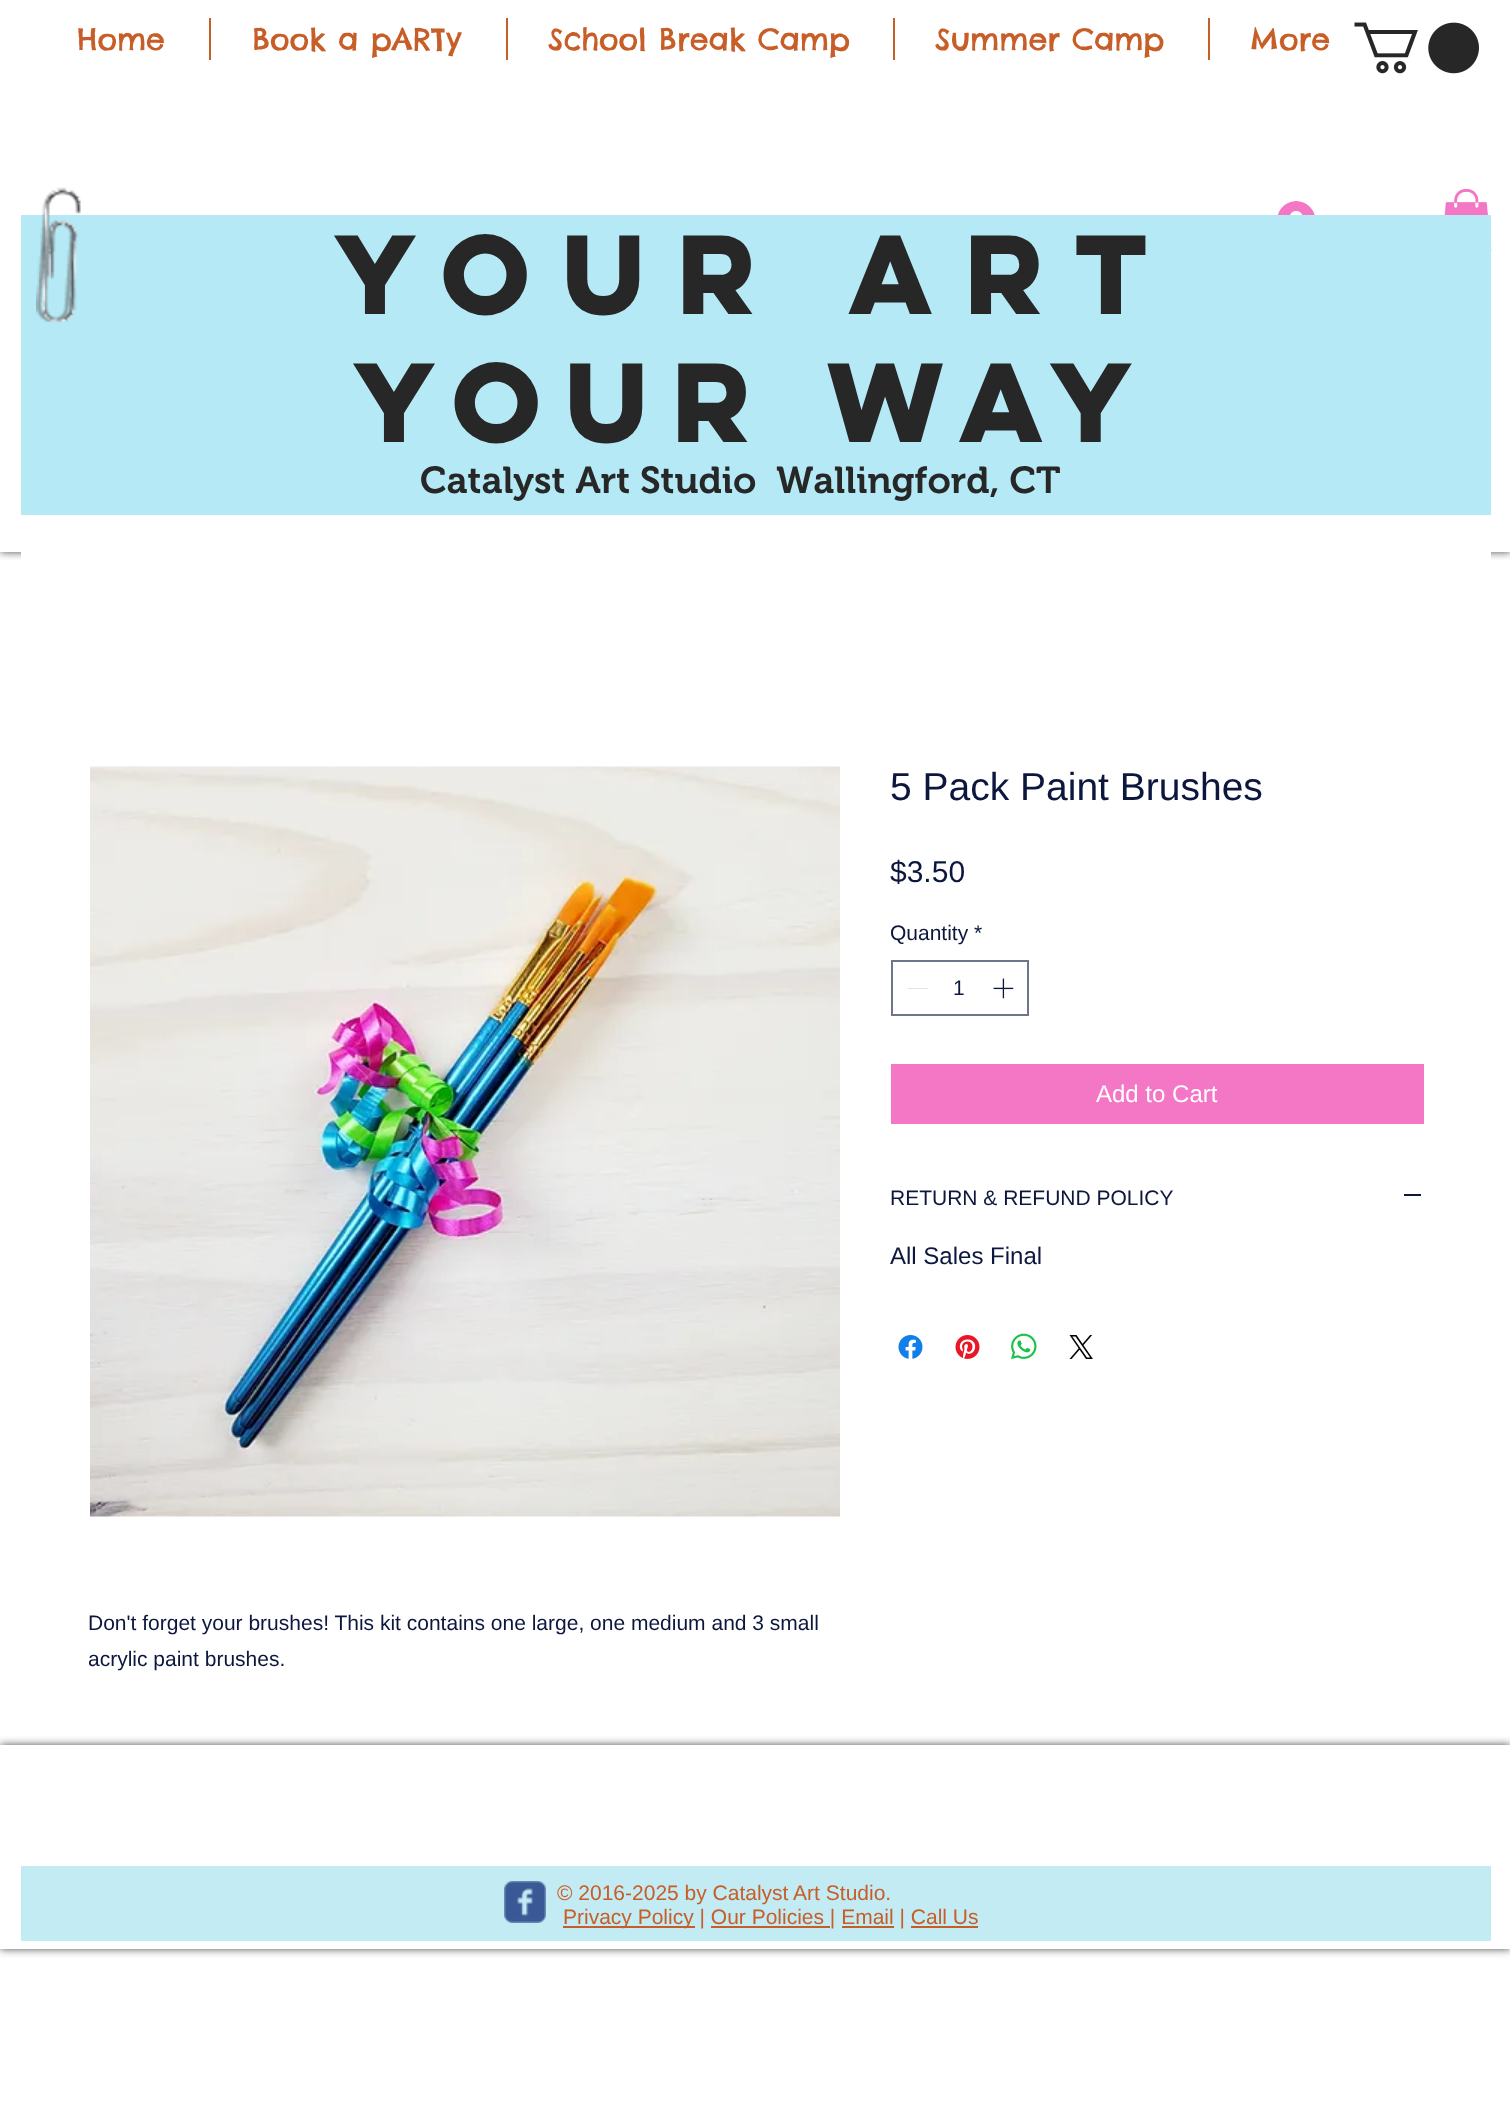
async function draw(canvas) {
	canvas.width = 1510;
	canvas.height = 2128;
	const c = canvas.getContext('2d');
	c.miterLimit = 4;
	c.fontKerning = 'normal';
	async function loadImage(src) {
		const img = new Image();
		img.src = src;
		await img.decode();
		return img;
	}

	c.fillStyle = '#fff';
	c.fillRect(0, 0, 1510, 2128);
	c.save();
	c.beginPath();
	c.rect(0, 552, 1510, 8);
	c.clip();
	c.fillStyle = '#000000b3';
	c.filter = 'blur(4px)';
	c.beginPath();
	c.rect(0, 0, 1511, 552);
	c.fill();
	c.filter = 'none';
	c.restore();
	c.drawImage(await loadImage('img1.png'), 1277, 201, 38, 14);
	c.drawImage(await loadImage('img2.png'), 1444, 189, 48, 63);
	c.font = '30px Chelsea Market';
	c.fillStyle = '#c75d27';
	c.fillText('Home', 77, 50);
	c.fillRect(209, 18, 2, 42);
	c.fillText('Book a pARTy', 252, 50);
	c.fillRect(506, 18, 2, 42);
	c.fillText('School Break Camp', 548, 50);
	c.fillRect(893, 18, 2, 42);
	c.fillText('Summer Camp', 935, 50);
	c.fillRect(1208, 18, 2, 42);
	c.fillText('More', 1250, 50);
	c.drawImage(await loadImage('img3.png'), 1354, 22, 125, 52);
	c.fillStyle = '#b4e9f5';
	c.fillRect(21, 215, 1470, 300);
	c.drawImage(await loadImage('img4.png'), 36, 187, 45, 136);
	c.letterSpacing = '10px';
	c.font = 'bold 100.5px "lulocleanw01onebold"';
	c.fillStyle = '#272727';
	c.fillText('yOUR Art', 334, 314);
	c.letterSpacing = '2px';
	c.fillText('yOUR Way', 353, 442);
	c.letterSpacing = '0px';
	c.font = '600 37.5px "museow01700"';
	c.fillText('Catalyst Art Studio  Wallingford, CT', 420, 493);
	c.fillStyle = '#fff';
	c.fillRect(21, 552, 1470, 9);
	c.font = '39px Liberation Sans';
	c.fillStyle = '#0d173e';
	c.fillText('5 Pack Paint Brushes', 890, 800);
	c.font = '30px Liberation Sans';
	c.fillText('$3.50', 890, 882);
	c.font = '21px Liberation Sans';
	c.fillText('Quantity *', 890, 940);
	c.strokeStyle = '#6e748b';
	c.lineWidth = 2;
	c.strokeRect(892, 961, 136, 54);
	c.fillStyle = '#e3e3e3';
	c.fillRect(908, 988, 20, 1);
	c.fillStyle = '#0d173e';
	c.fillText('1', 953, 995);
	c.drawImage(await loadImage('img5.png'), 993, 978, 21, 21);
	c.fillStyle = '#f377c5';
	c.fillRect(891, 1064, 533, 60);
	c.font = '24px Liberation Sans';
	c.fillStyle = '#fff';
	c.fillText('Add to Cart', 1096, 1102);
	c.font = '21px Liberation Sans';
	c.fillStyle = '#0d173e';
	c.fillText('RETURN & REFUND POLICY', 890, 1205);
	c.fillRect(1404, 1194, 17, 2);
	c.font = '24px Liberation Sans';
	c.fillText('All Sales Final', 890, 1264);
	c.drawImage(await loadImage('img6.png'), 898, 1335, 25, 24);
	c.drawImage(await loadImage('img7.png'), 955, 1335, 25, 24);
	c.drawImage(await loadImage('img8.png'), 1011, 1333, 26, 27);
	c.drawImage(await loadImage('img9.png'), 1069, 1335, 24, 24);
	c.drawImage(await loadImage('img10.png'), 90, 766, 750, 751);
	c.font = '21px Liberation Sans';
	c.fillText('Don\'t forget your brushes! This kit contains one large, one medium and 3 small', 88, 1630);
	c.save();
	c.beginPath();
	c.rect(89, 1605, 750, 72);
	c.clip();
	c.fillText('acrylic paint brushes.', 88, 1666);
	c.restore();
	c.fillStyle = '#000000b3';
	c.filter = 'blur(4px)';
	c.beginPath();
	c.rect(0, 1745, 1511, 204);
	c.fill();
	c.filter = 'none';
	c.fillStyle = '#fff';
	c.fillRect(0, 1745, 1510, 204);
	c.fillStyle = '#c3ebf4';
	c.fillRect(21, 1866, 1470, 75);
	c.drawImage(await loadImage('img11.png'), 504, 1881, 42, 42);
	c.fillStyle = '#c75d27';
	c.fillText('© 2016-2025 by Catalyst Art Studio.', 557, 1900);
	c.fillRect(563, 1926, 132, 2);
	c.fillText('Privacy Policy | Our Policies | Email | Call Us', 563, 1924);
	for (const [x, y, w, h, color] of [
		[711, 1926, 119, 2, '#c75d27'],
		[842, 1926, 52, 2, '#c75d27'],
		[911, 1926, 67, 2, '#c75d27'],
	]) {
		c.fillStyle = color;
		c.fillRect(x, y, w, h);
	}
}

draw(document.querySelector('canvas'));
